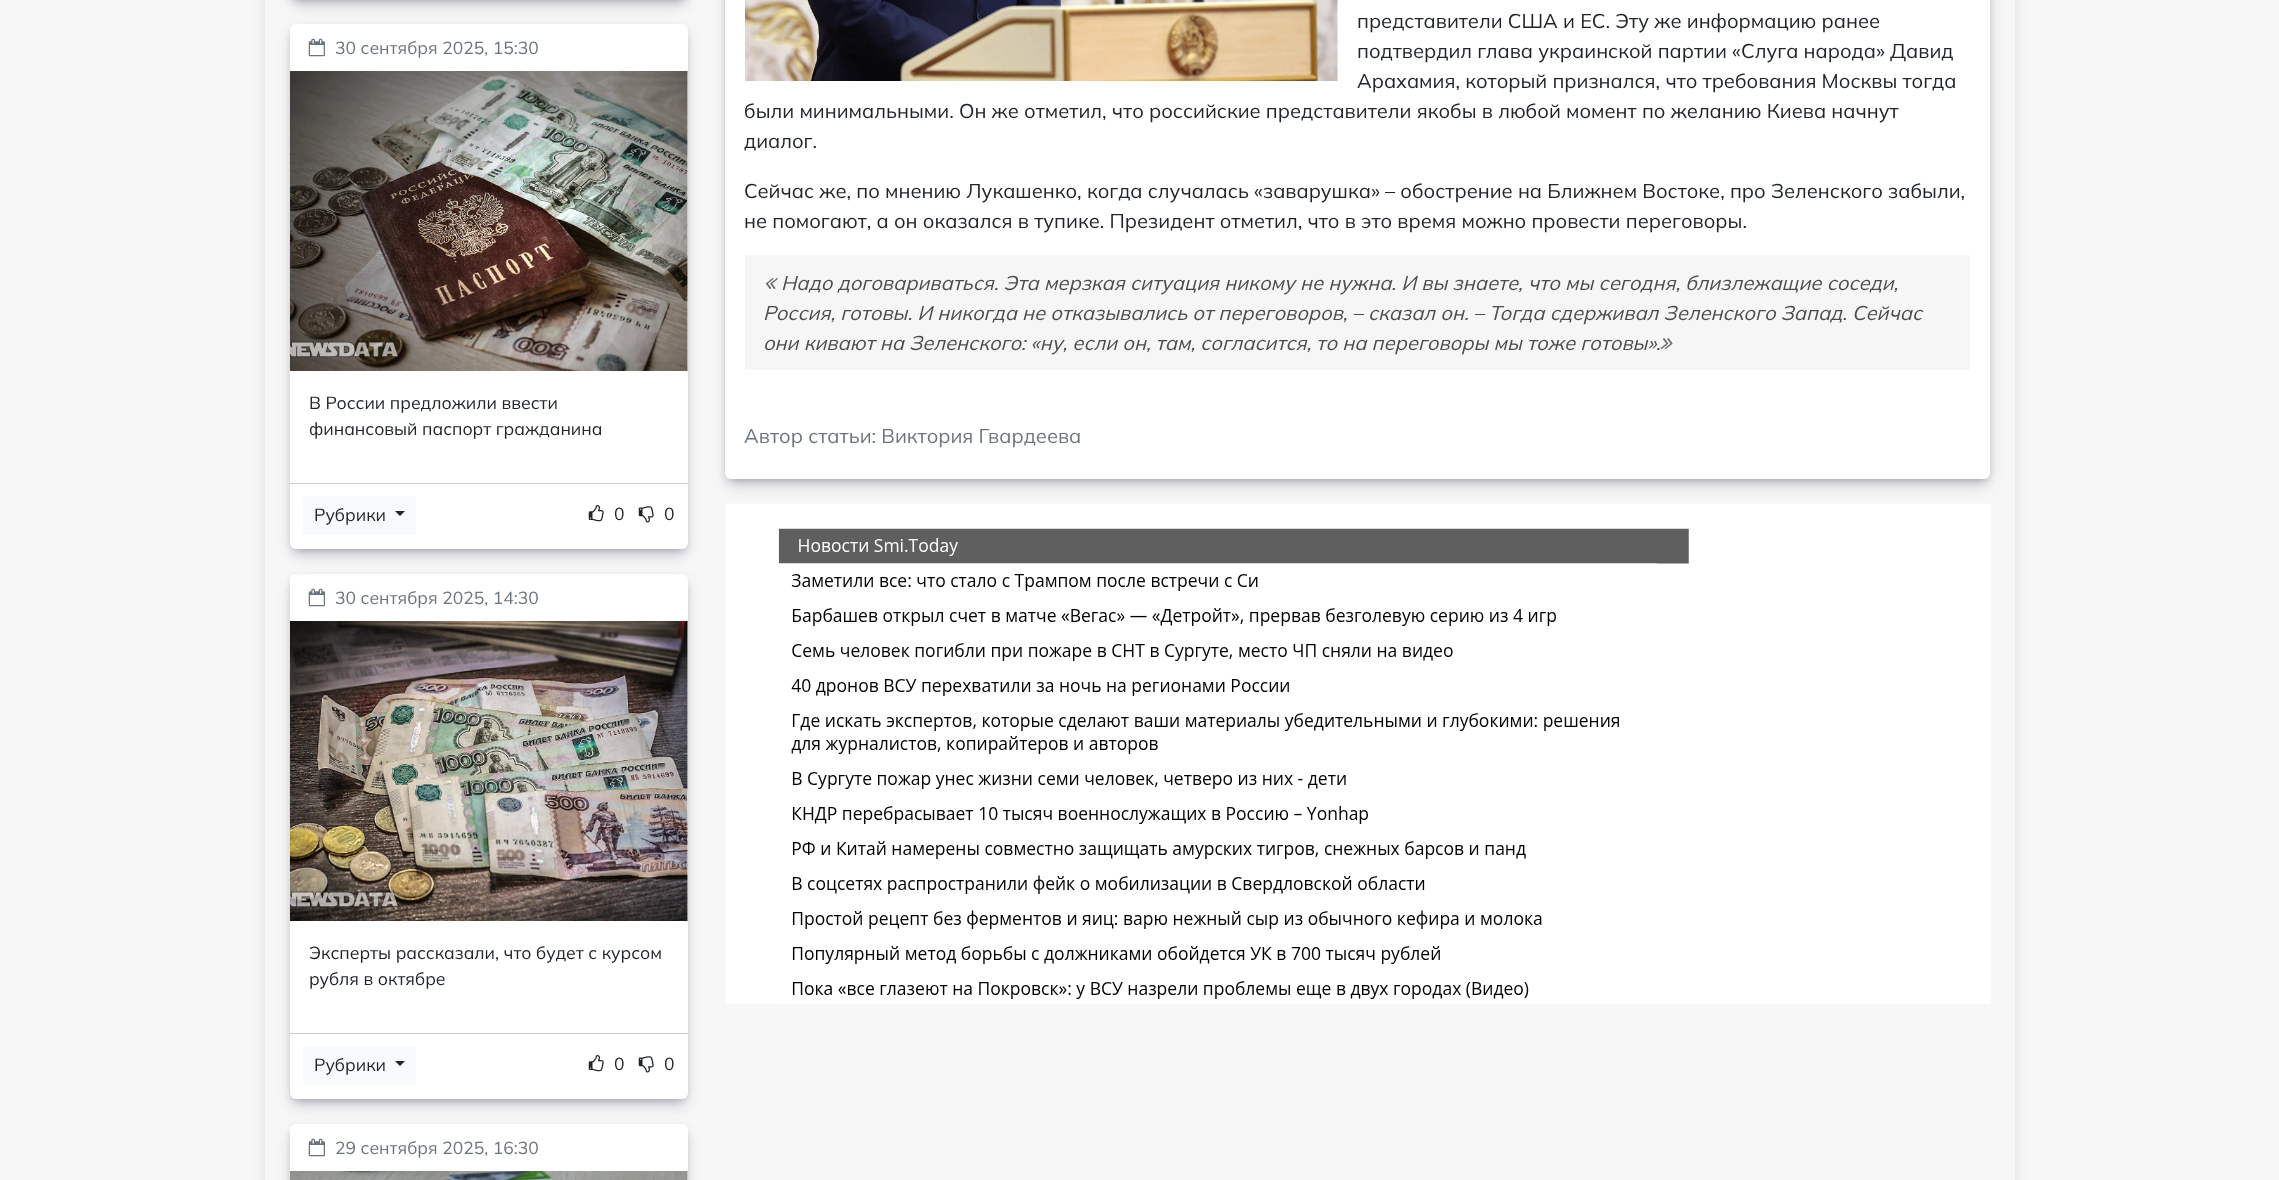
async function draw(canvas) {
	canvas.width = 2279;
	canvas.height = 1180;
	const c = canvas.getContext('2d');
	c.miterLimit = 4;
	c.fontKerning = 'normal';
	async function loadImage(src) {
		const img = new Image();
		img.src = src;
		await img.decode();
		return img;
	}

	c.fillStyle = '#f7f7f7';
	c.fillRect(0, 0, 2279, 1180);
	c.save();
	c.beginPath();
	c.moveTo(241, 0);
	c.lineTo(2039, 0);
	c.lineTo(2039, 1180);
	c.lineTo(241, 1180);
	c.closePath();
	c.moveTo(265, -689);
	c.lineTo(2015, -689);
	c.lineTo(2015, 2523);
	c.lineTo(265, 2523);
	c.closePath();
	c.clip('evenodd');
	c.fillStyle = '#0000001a';
	c.filter = 'blur(7.5px)';
	c.beginPath();
	c.rect(265, -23, 1750, 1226);
	c.fill();
	c.filter = 'none';
	c.restore();
	c.fillStyle = '#0000004d';
	c.filter = 'blur(4.5px)';
	c.beginPath();
	c.roundRect(294, -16, 390, 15, 2.5);
	c.fill();
	c.filter = 'none';
	c.fillStyle = '#32325d40';
	c.filter = 'blur(7.5px)';
	c.beginPath();
	c.roundRect(293, -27, 392, 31, 4);
	c.fill();
	c.filter = 'none';
	c.fillStyle = '#0000004d';
	c.filter = 'blur(4.5px)';
	c.beginPath();
	c.roundRect(294, 31, 390, 518, 2.5);
	c.fill();
	c.filter = 'none';
	c.fillStyle = '#32325d40';
	c.filter = 'blur(7.5px)';
	c.beginPath();
	c.roundRect(293, 34, 392, 520, 4);
	c.fill();
	c.filter = 'none';
	c.fillStyle = '#fff';
	c.beginPath();
	c.roundRect(290, 24, 398, 525, 6);
	c.fill();
	c.drawImage(await loadImage('img1.png'), 308, 38, 17, 19);
	c.font = '200 17.5px Mulish';
	c.fillStyle = '#6c757d';
	c.fillText('30 сентября 2025, 15:30', 335, 54);
	c.drawImage(await loadImage('img2.png'), 290, 71, 398, 300);
	c.fillStyle = '#cbcbcb';
	c.fillRect(290, 483, 398, 1);
	c.fillStyle = '#212529';
	c.fillText('В России предложили ввести', 309, 409);
	c.fillText('финансовый паспорт гражданина', 309, 435);
	c.fillStyle = '#f8f9fa';
	c.beginPath();
	c.roundRect(303, 496, 113, 39, 4);
	c.fill();
	c.fillStyle = '#212529';
	c.fillText('Рубрики', 314, 521);
	c.beginPath();
	c.moveTo(395, 511);
	c.lineTo(405, 511);
	c.lineTo(400, 516);
	c.closePath();
	c.fill();
	c.drawImage(await loadImage('img3.png'), 588, 505, 16, 17);
	c.fillText('0', 614, 520);
	c.drawImage(await loadImage('img4.png'), 638, 506, 16, 17);
	c.fillText('0', 664, 520);
	c.fillStyle = '#0000004d';
	c.filter = 'blur(4.5px)';
	c.beginPath();
	c.roundRect(294, 581, 390, 518, 2.5);
	c.fill();
	c.filter = 'none';
	c.fillStyle = '#32325d40';
	c.filter = 'blur(7.5px)';
	c.beginPath();
	c.roundRect(293, 584, 392, 520, 4);
	c.fill();
	c.filter = 'none';
	c.fillStyle = '#fff';
	c.beginPath();
	c.roundRect(290, 574, 398, 525, 6);
	c.fill();
	c.drawImage(await loadImage('img1.png'), 308, 588, 17, 19);
	c.fillStyle = '#6c757d';
	c.fillText('30 сентября 2025, 14:30', 335, 604);
	c.drawImage(await loadImage('img5.png'), 290, 621, 398, 300);
	c.fillStyle = '#cbcbcb';
	c.fillRect(290, 1033, 398, 1);
	c.fillStyle = '#212529';
	c.fillText('Эксперты рассказали, что будет с курсом', 309, 959);
	c.fillText('рубля в октябре', 309, 985);
	c.fillStyle = '#f8f9fa';
	c.beginPath();
	c.roundRect(303, 1046, 113, 39, 4);
	c.fill();
	c.fillStyle = '#212529';
	c.fillText('Рубрики', 314, 1071);
	c.beginPath();
	c.moveTo(395, 1061);
	c.lineTo(405, 1061);
	c.lineTo(400, 1066);
	c.closePath();
	c.fill();
	c.drawImage(await loadImage('img3.png'), 588, 1055, 16, 17);
	c.fillText('0', 614, 1070);
	c.drawImage(await loadImage('img4.png'), 638, 1056, 16, 17);
	c.fillText('0', 664, 1070);
	c.fillStyle = '#0000004d';
	c.filter = 'blur(4.5px)';
	c.beginPath();
	c.roundRect(294, 1131, 390, 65, 2.5);
	c.fill();
	c.filter = 'none';
	c.fillStyle = '#32325d40';
	c.filter = 'blur(7.5px)';
	c.beginPath();
	c.roundRect(293, 1134, 392, 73, 4);
	c.fill();
	c.filter = 'none';
	c.fillStyle = '#fff';
	c.beginPath();
	c.roundRect(290, 1124, 398, 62, 6);
	c.fill();
	c.drawImage(await loadImage('img1.png'), 308, 1138, 17, 19);
	c.fillStyle = '#6c757d';
	c.fillText('29 сентября 2025, 16:30', 335, 1154);
	c.drawImage(await loadImage('img6.png'), 290, 1171, 398, 9);
	c.fillStyle = '#0000004d';
	c.filter = 'blur(4.5px)';
	c.beginPath();
	c.roundRect(729, -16, 1257, 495, 2.5);
	c.fill();
	c.filter = 'none';
	c.drawImage(await loadImage('img10.png'), 725, 504, 1266, 500);
	c.fillStyle = '#32325d40';
	c.filter = 'blur(7.5px)';
	c.beginPath();
	c.roundRect(728, -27, 1260, 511, 4);
	c.fill();
	c.filter = 'none';
	c.fillStyle = '#fff';
	c.beginPath();
	c.roundRect(725, -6, 1265, 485, 6);
	c.fill();
	c.drawImage(await loadImage('img7.png'), 745, 0, 593, 81);
	c.font = '200 20px Mulish';
	c.fillStyle = '#212529';
	for (const [text, x, y] of [
		['представители США и ЕС. Эту же информацию ранее', 1357, 28],
		['подтвердил глава украинской партии «Слуга народа» Давид', 1357, 58],
		['Арахамия, который признался, что требования Москвы тогда', 1357, 88],
		['были минимальными. Он же отметил, что российские представители якобы в любой момент по желанию Киева начнут', 744, 118],
		['диалог.', 744, 148],
		['Сейчас же, по мнению Лукашенко, когда случалась «заварушка» – обострение на Ближнем Востоке, про Зеленского забыли,', 744, 198],
		['не помогают, а он оказался в тупике. Президент отметил, что в это время можно провести переговоры.', 744, 228],
	]) {
		c.fillText(text, x, y);
	}
	c.fillStyle = '#f6f6f6';
	c.fillRect(745, 255, 1225, 115);
	c.drawImage(await loadImage('img8.png'), 765, 278, 13, 12);
	c.font = 'italic 200 20px Mulish';
	c.fillStyle = '#4c4c4c';
	for (const [text, x, y] of [
		['Надо договариваться. Эта мерзкая ситуация никому не нужна. И вы знаете, что мы сегодня, близлежащие соседи,', 781, 290],
		['Россия, готовы. И никогда не отказывались от переговоров, – сказал он. – Тогда сдерживал Зеленского Запад. Сейчас', 763, 320],
		['они кивают на Зеленского: «ну, если он, там, согласится, то на переговоры мы тоже готовы».', 763, 350],
	]) {
		c.fillText(text, x, y);
	}
	c.drawImage(await loadImage('img9.png'), 1660, 338, 13, 12);
	c.font = '200 20px Mulish';
	c.fillStyle = '#6c757d';
	c.fillText('Автор статьи: Виктория Гвардеева', 744, 443);
}

draw(document.querySelector('canvas'));
